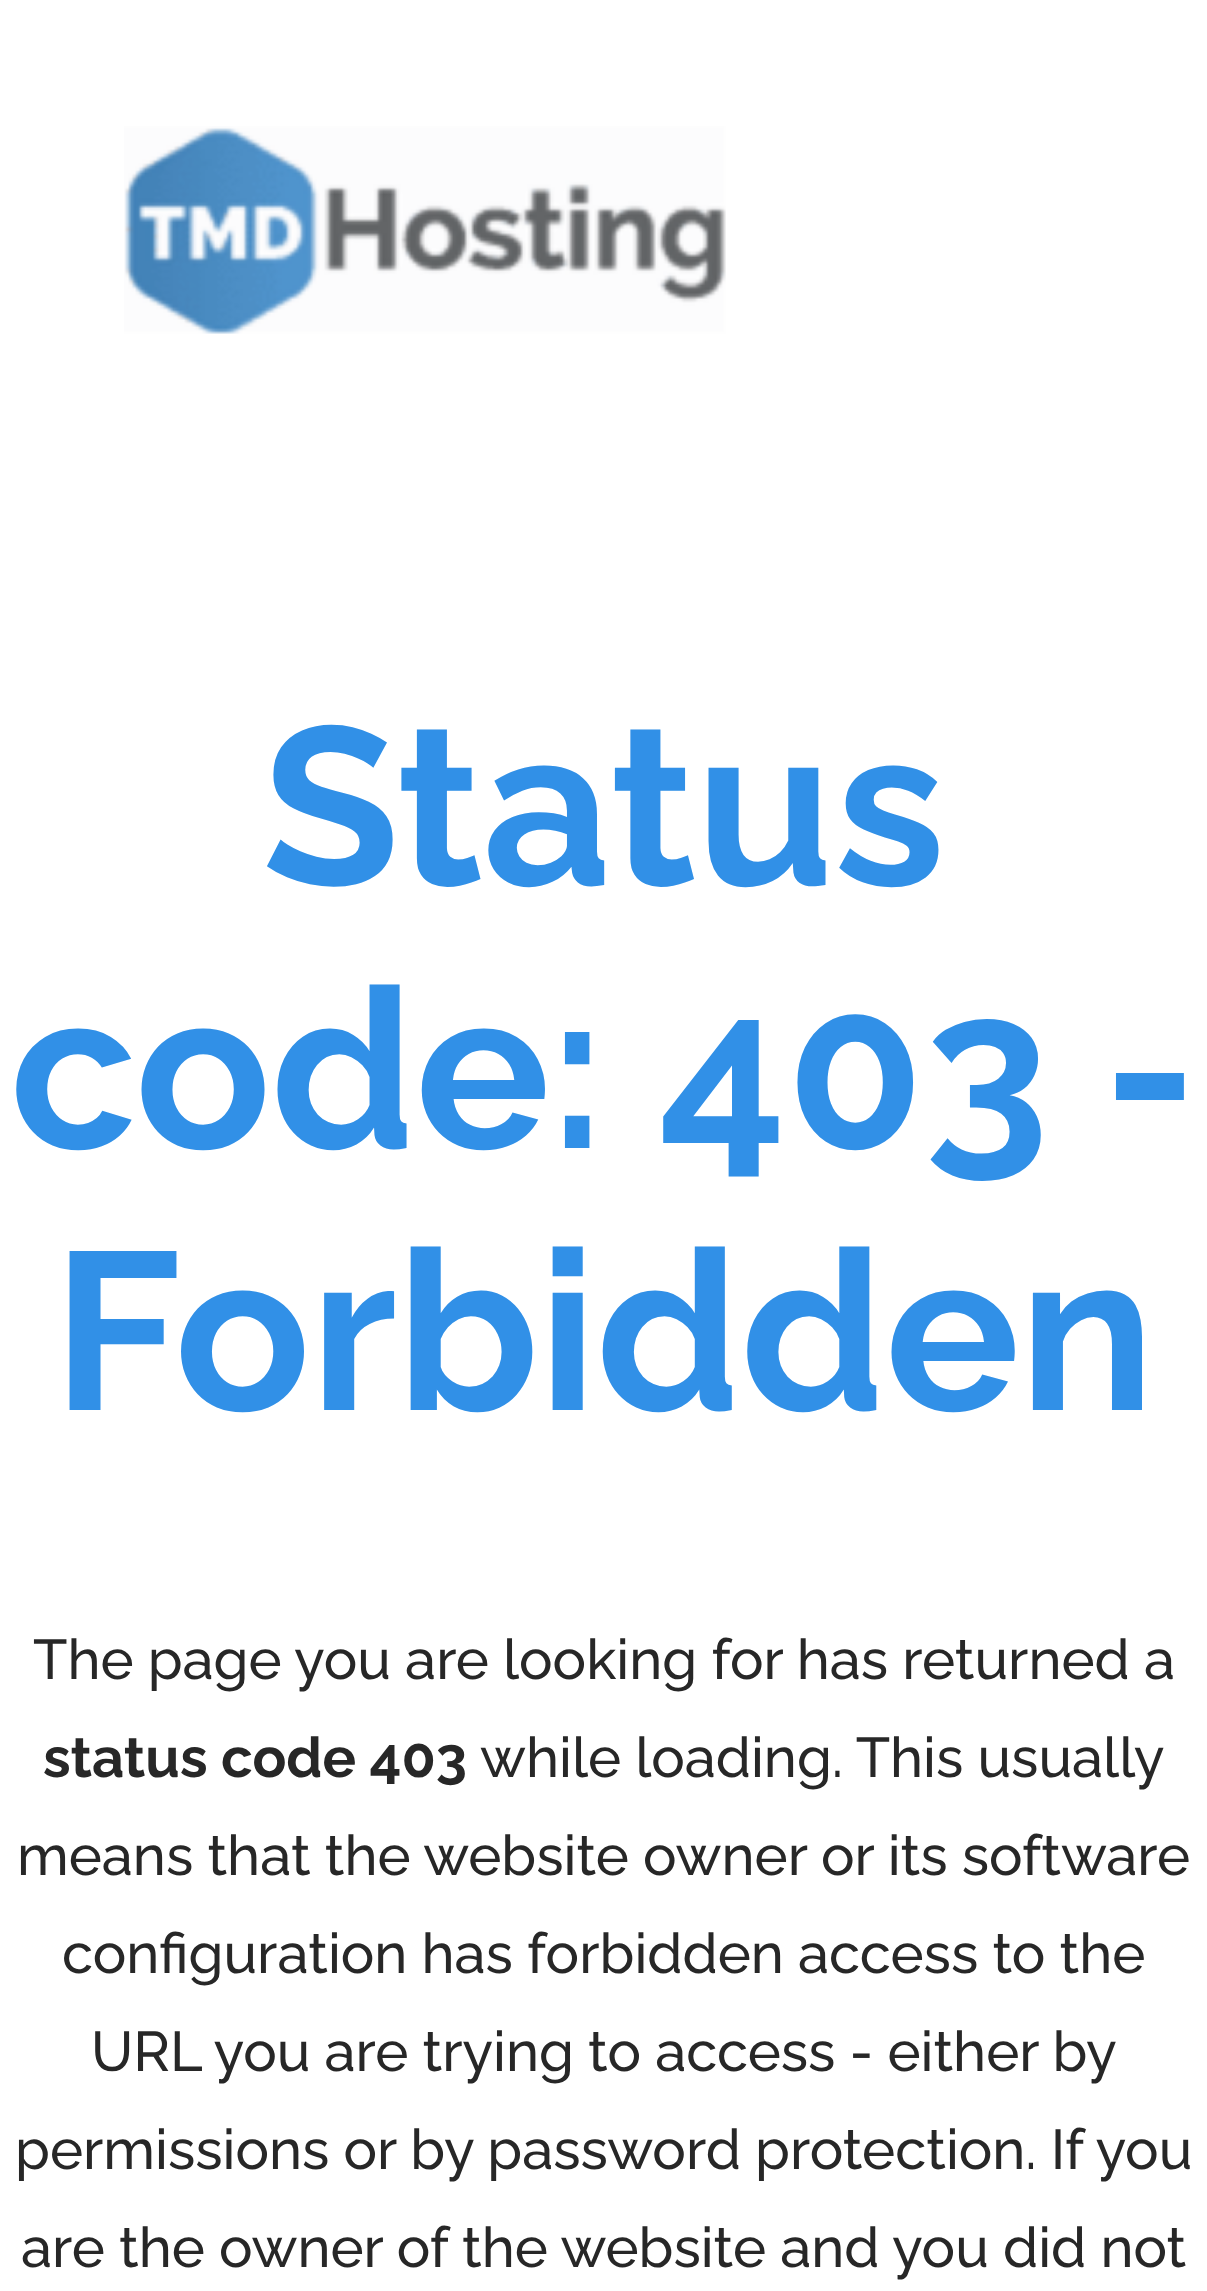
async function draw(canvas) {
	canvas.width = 1207;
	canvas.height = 2291;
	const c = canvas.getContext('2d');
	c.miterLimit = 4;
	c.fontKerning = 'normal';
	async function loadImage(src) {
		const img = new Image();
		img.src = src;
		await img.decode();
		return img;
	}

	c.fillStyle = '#fff';
	c.fillRect(0, 0, 1207, 2291);
	c.drawImage(await loadImage('img1.png'), 124, 126, 602, 208);
	c.font = 'bold 224px Raleway';
	c.fillStyle = '#3190e7';
	for (const [text, x, y] of [
		['Status', 262, 885],
		['code: 403 -', 10, 1148],
		['Forbidden', 53, 1410],
	]) {
		c.fillText(text, x, y);
	}
	c.font = '500 56px Raleway';
	c.fillStyle = '#272727';
	c.fillText('The page you are looking for has returned a', 33, 1679);
	c.font = 'bold 56px Raleway';
	c.fillText('status code 403', 43, 1777);
	c.font = '500 56px Raleway';
	for (const [text, x, y] of [
		['while loading. This usually', 480, 1777],
		['means that the website owner or its software', 17, 1875],
		['configuration has forbidden access to the', 62, 1973],
		['URL you are trying to access - either by', 91, 2071],
		['permissions or by password protection. If you', 15, 2169],
		['are the owner of the website and you did not', 21, 2267],
	]) {
		c.fillText(text, x, y);
	}
}

draw(document.querySelector('canvas'));
